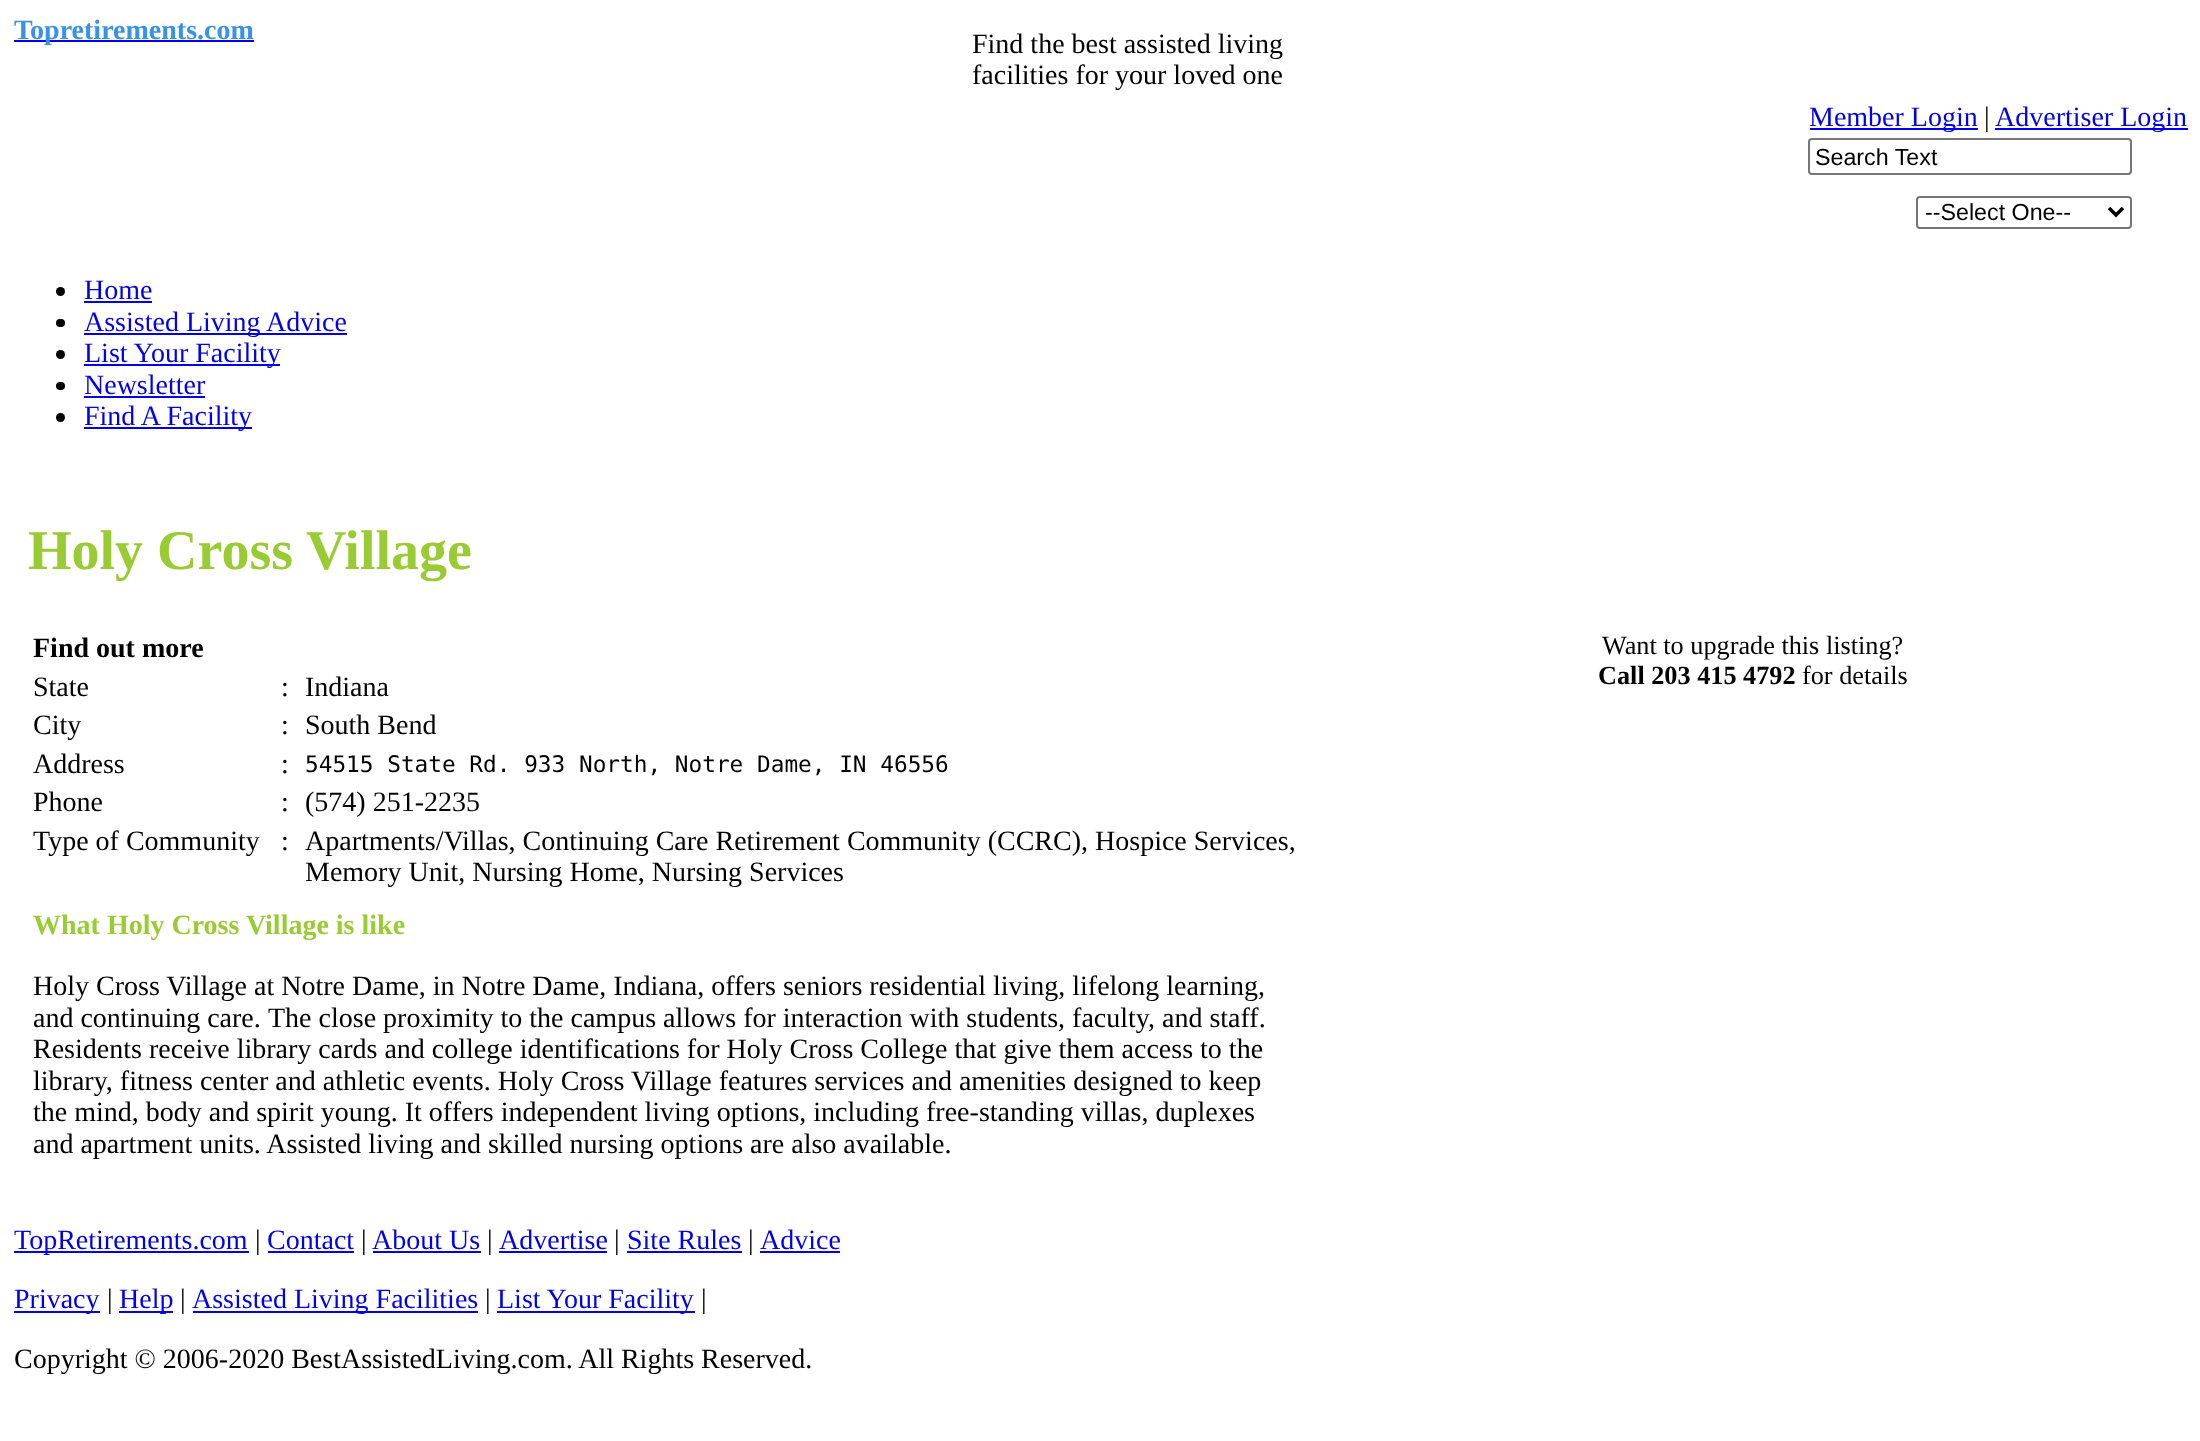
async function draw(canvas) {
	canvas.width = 2200;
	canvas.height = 1441;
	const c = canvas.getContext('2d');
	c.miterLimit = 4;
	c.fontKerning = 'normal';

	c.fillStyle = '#fff';
	c.fillRect(0, 0, 2200, 1441);
	c.fillStyle = '#00e';
	c.fillRect(14, 40, 240, 2);
	c.font = 'bold 28px Liberation Serif';
	c.fillStyle = '#3792e8';
	c.fillText('Topretirements.com', 14, 39);
	c.font = '28px Liberation Serif';
	c.fillStyle = '#000';
	c.fillText('Find the best assisted living', 972, 53);
	c.fillText('facilities for your loved one', 972, 84);
	c.fillStyle = '#00e';
	c.fillRect(1810, 128, 168, 2);
	c.fillText('Member Login', 1809, 126);
	c.fillStyle = '#000';
	c.fillText('|', 1984, 126);
	c.fillStyle = '#00e';
	c.fillRect(1995, 128, 193, 2);
	c.fillText('Advertiser Login', 1995, 126);
	c.beginPath();
	c.roundRect(1809, 139, 322, 35, 3);
	c.strokeStyle = '#767676';
	c.lineWidth = 2;
	c.stroke();
	c.font = '23.25px Liberation Sans';
	c.fillStyle = '#000';
	c.fillText('Search Text', 1815, 165);
	c.beginPath();
	c.roundRect(1917, 197, 214, 31, 3);
	c.stroke();
	c.beginPath();
	c.moveTo(2109, 208);
	c.lineTo(2116, 215);
	c.lineTo(2123, 208);
	c.strokeStyle = '#000';
	c.lineWidth = 3.5;
	c.stroke();
	c.fillText('--Select One--', 1925, 220);
	c.beginPath();
	c.arc(60.5, 291.5, 4.5, 0, 2 * Math.PI);
	c.fill();
	c.font = '28px Liberation Serif';
	c.fillStyle = '#00e';
	c.fillText('Home', 84, 299);
	c.fillRect(84, 301, 68, 2);
	c.fillStyle = '#000';
	c.beginPath();
	c.roundRect(56, 319, 9, 8, 4);
	c.fill();
	c.fillStyle = '#00e';
	c.fillRect(84, 333, 263, 2);
	c.fillText('Assisted Living Advice', 84, 331);
	c.fillStyle = '#000';
	c.beginPath();
	c.arc(60.5, 354.5, 4.5, 0, 2 * Math.PI);
	c.fill();
	c.fillStyle = '#00e';
	c.fillRect(84, 364, 196, 2);
	c.fillText('List Your Facility', 84, 362);
	c.fillStyle = '#000';
	c.beginPath();
	c.roundRect(56, 382, 9, 8, 4);
	c.fill();
	c.fillStyle = '#00e';
	c.fillText('Newsletter', 84, 394);
	c.fillRect(84, 396, 121, 2);
	c.fillStyle = '#000';
	c.beginPath();
	c.arc(60.5, 417.5, 4.5, 0, 2 * Math.PI);
	c.fill();
	c.fillStyle = '#00e';
	c.fillRect(84, 427, 168, 2);
	c.fillText('Find A Facility', 84, 425);
	c.font = 'bold 56px Liberation Serif';
	c.fillStyle = '#9c3';
	c.fillText('Holy Cross Village', 28, 569);
	c.font = 'bold 28px Liberation Serif';
	c.fillStyle = '#000';
	c.fillText('Find out more', 33, 657);
	c.font = '28px Liberation Serif';
	for (const [text, x, y] of [
		['State', 33, 696],
		[':', 281, 696],
		['Indiana', 305, 696],
		['City', 33, 734],
		[':', 281, 734],
		['South Bend', 305, 734],
		['Address', 33, 773],
		[':', 281, 773],
	]) {
		c.fillText(text, x, y);
	}
	c.font = '22.75px DejaVu Sans Mono';
	c.fillText('54515 State Rd. 933 North, Notre Dame, IN 46556', 305, 772);
	c.font = '28px Liberation Serif';
	for (const [text, x, y] of [
		['Phone', 33, 811],
		[':', 281, 811],
		['(574) 251-2235', 305, 811],
		['Type of Community', 33, 850],
		[':', 281, 850],
		['Apartments/Villas, Continuing Care Retirement Community (CCRC), Hospice Services,', 305, 850],
		['Memory Unit, Nursing Home, Nursing Services', 305, 881],
	]) {
		c.fillText(text, x, y);
	}
	c.font = 'bold 28px Liberation Serif';
	c.fillStyle = '#9c3';
	c.fillText('What Holy Cross Village is like', 33, 934);
	c.font = '28px Liberation Serif';
	c.fillStyle = '#000';
	for (const [text, x, y] of [
		['Holy Cross Village at Notre Dame, in Notre Dame, Indiana, offers seniors residential living, lifelong learning,', 33, 995],
		['and continuing care.', 33, 1027],
		['The close proximity to the campus allows for interaction with students, faculty, and staff.', 268, 1027],
		['Residents receive library cards and college identifications for Holy Cross College that give them access to the', 33, 1058],
		['library, fitness center and athletic events. Holy Cross Village features services and amenities designed to keep', 33, 1090],
		['the mind, body and spirit young. It offers independent living options, including free-standing villas, duplexes', 33, 1121],
		['and apartment units. Assisted living and skilled nursing options are also available.', 33, 1153],
	]) {
		c.fillText(text, x, y);
	}
	c.font = '26.25px Liberation Serif';
	c.fillText('Want to upgrade this listing?', 1602, 654);
	c.font = 'bold 26.25px Liberation Serif';
	c.fillText('Call 203 415 4792', 1598, 684);
	c.font = '26.25px Liberation Serif';
	c.fillText('for details', 1802, 684);
	c.fillStyle = '#00e';
	c.fillRect(14, 1251, 235, 2);
	c.font = '28px Liberation Serif';
	c.fillText('TopRetirements.com', 14, 1249);
	c.fillStyle = '#000';
	c.fillText('|', 255, 1249);
	c.fillStyle = '#00e';
	c.fillText('Contact', 267, 1249);
	c.fillRect(268, 1251, 86, 2);
	c.fillStyle = '#000';
	c.fillText('|', 361, 1249);
	c.fillStyle = '#00e';
	c.fillText('About Us', 372, 1249);
	c.fillRect(373, 1251, 108, 2);
	c.fillStyle = '#000';
	c.fillText('|', 487, 1249);
	c.fillStyle = '#00e';
	c.fillText('Advertise', 499, 1249);
	c.fillRect(499, 1251, 108, 2);
	c.fillStyle = '#000';
	c.fillText('|', 614, 1249);
	c.fillStyle = '#00e';
	c.fillText('Site Rules', 627, 1249);
	c.fillRect(627, 1251, 115, 2);
	c.fillStyle = '#000';
	c.fillText('|', 748, 1249);
	c.fillStyle = '#00e';
	c.fillText('Advice', 760, 1249);
	c.fillRect(760, 1251, 80, 2);
	c.fillRect(14, 1311, 86, 2);
	c.fillText('Privacy', 14, 1308);
	c.fillStyle = '#000';
	c.fillText('|', 107, 1308);
	c.fillStyle = '#00e';
	c.fillRect(119, 1311, 54, 2);
	c.fillText('Help', 119, 1308);
	c.fillStyle = '#000';
	c.fillText('|', 180, 1308);
	c.fillStyle = '#00e';
	c.fillRect(193, 1311, 285, 2);
	c.fillText('Assisted Living Facilities', 192, 1308);
	c.fillStyle = '#000';
	c.fillText('|', 485, 1308);
	c.fillStyle = '#00e';
	c.fillRect(497, 1311, 198, 2);
	c.fillText('List Your Facility', 497, 1308);
	c.fillStyle = '#000';
	c.fillText('|', 701, 1308);
	c.fillText('Copyright © 2006-2020 BestAssistedLiving.com. All Rights Reserved.', 14, 1368);
}

draw(document.querySelector('canvas'));
